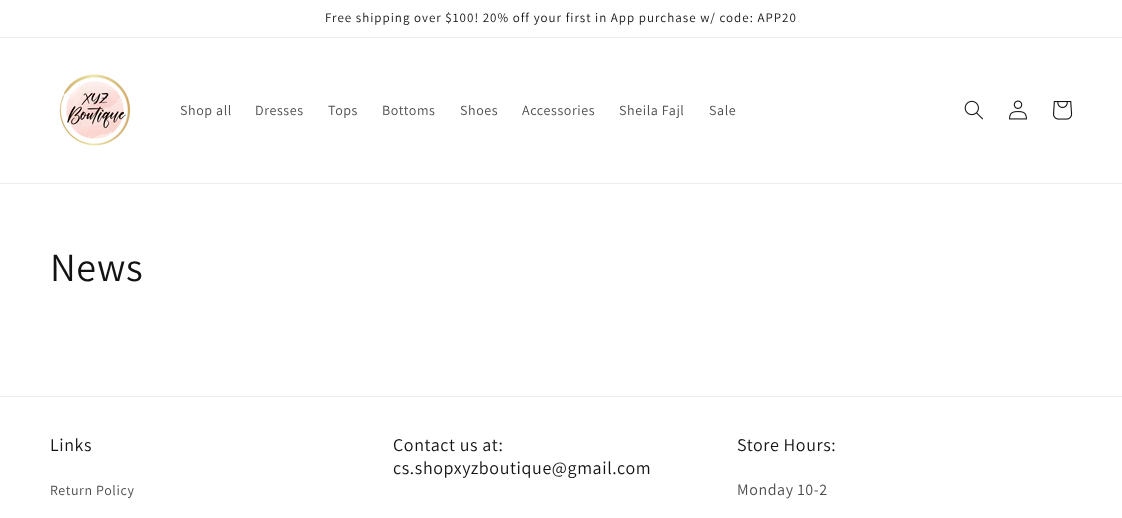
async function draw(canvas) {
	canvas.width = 1122;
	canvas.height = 518;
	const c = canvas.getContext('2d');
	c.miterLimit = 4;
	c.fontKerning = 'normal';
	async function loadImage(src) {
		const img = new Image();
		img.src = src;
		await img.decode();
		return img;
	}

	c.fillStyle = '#fff';
	c.fillRect(0, 0, 1122, 518);
	c.fillStyle = '#ececec';
	c.fillRect(0, 37, 1122, 1);
	c.letterSpacing = '1px';
	c.font = '13px Assistant';
	c.fillStyle = '#121212';
	c.fillText('Free shipping over $100! 20% off your first in App purchase w/ code: APP20', 325, 22);
	c.fillStyle = '#ececec';
	c.fillRect(0, 183, 1122, 1);
	c.drawImage(await loadImage('img1.png'), 59, 74, 72, 72);
	c.letterSpacing = '0.6px';
	c.font = '14px Assistant';
	c.fillStyle = '#4d4d4d';
	for (const [text, x, y] of [
		['Shop all', 180, 115],
		['Dresses', 255, 115],
		['Tops', 328, 115],
		['Bottoms', 382, 115],
		['Shoes', 460, 115],
		['Accessories', 522, 115],
		['Sheila Fajl', 619, 115],
		['Sale', 709, 115],
	]) {
		c.fillText(text, x, y);
	}
	c.drawImage(await loadImage('img2.png'), 964, 100, 19, 20);
	c.drawImage(await loadImage('img3.png'), 1009, 100, 18, 20);
	c.drawImage(await loadImage('img4.png'), 1053, 101, 20, 19);
	c.font = '40px Assistant';
	c.fillStyle = '#121212';
	c.fillText('News', 50, 281);
	c.fillStyle = '#ececec';
	c.fillRect(0, 396, 1122, 1);
	c.font = '18px Assistant';
	c.fillStyle = '#121212';
	c.fillText('Links', 50, 451);
	c.font = '14px Assistant';
	c.fillStyle = '#4d4d4d';
	c.fillText('Return Policy', 50, 495);
	c.font = '18px Assistant';
	c.fillStyle = '#121212';
	for (const [text, x, y] of [
		['Contact us at:', 393, 451],
		['cs.shopxyzboutique@gmail.com', 393, 474],
		['Store Hours:', 737, 451],
	]) {
		c.fillText(text, x, y);
	}
	c.font = '16px Assistant';
	c.fillStyle = '#4d4d4d';
	c.fillText('Monday 10-2', 737, 495);
}

draw(document.querySelector('canvas'));
